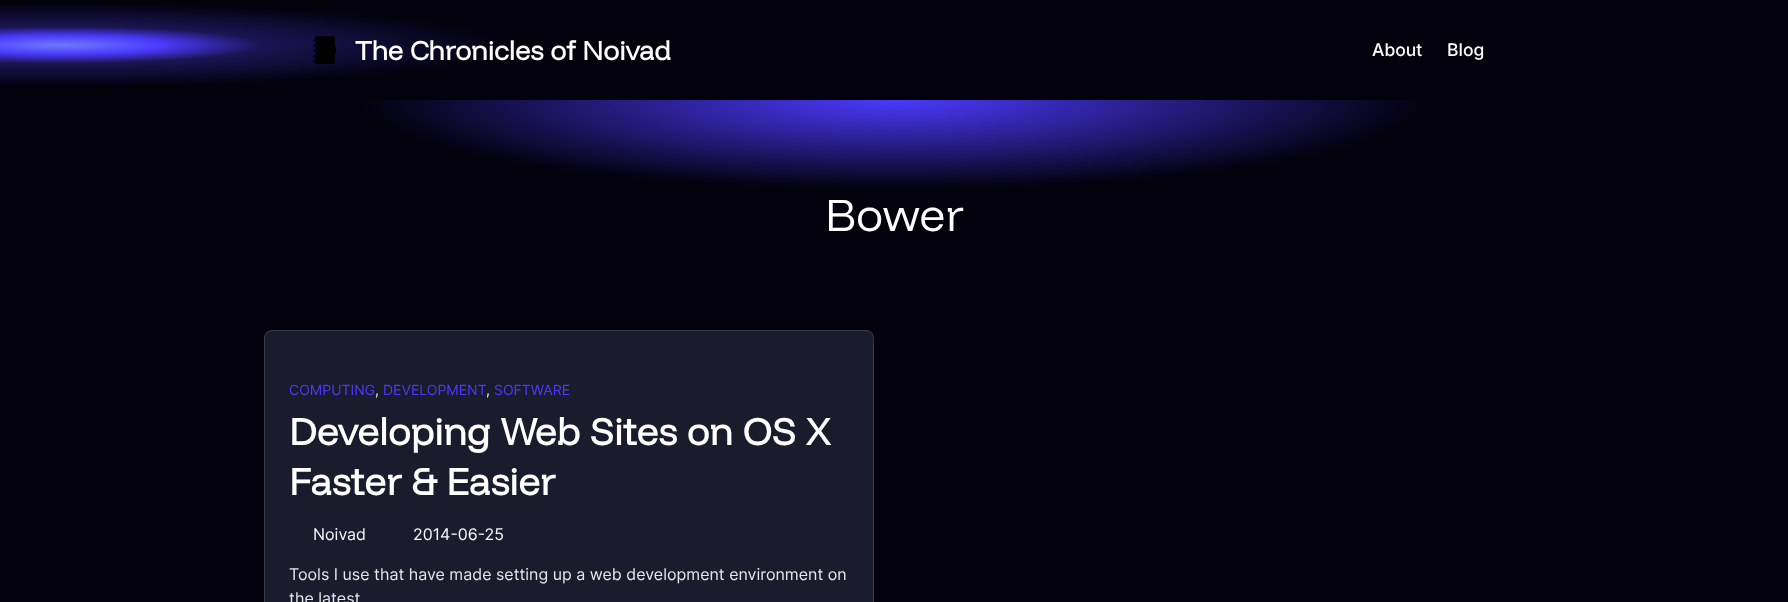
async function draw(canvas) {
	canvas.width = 1788;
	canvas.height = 602;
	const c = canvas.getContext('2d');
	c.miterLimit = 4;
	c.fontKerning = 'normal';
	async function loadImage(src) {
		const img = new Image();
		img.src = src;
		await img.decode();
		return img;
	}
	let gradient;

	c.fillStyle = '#fff';
	c.fillRect(0, 0, 1788, 602);
	gradient = c.createRadialGradient(62, 486.43, 0, 62, 486.43, 454);
	gradient.addColorStop(0, '#6f79ff');
	gradient.addColorStop(0.22, '#4a3afd');
	gradient.addColorStop(0.44, '#1a1452');
	gradient.addColorStop(1, '#02010c');
	c.fillStyle = gradient;
	c.beginPath();
	c.rect(0, 0, 1788, 100);
	c.save();
	c.clip();
	c.scale(1, 42 / 454);
	c.fillRect(0, 0, 1788, 6508);
	c.restore();
	c.drawImage(await loadImage('img1.png'), 312, 36, 24, 28);
	c.font = 'bold 27px Funnel Display';
	c.fillStyle = '#fffffe';
	c.fillText('The Chronicles of Noivad', 355, 60);
	c.font = '500 17.5px Inter';
	c.fillText('About', 1372, 56);
	c.fillText('Blog', 1447, 56);
	gradient = c.createRadialGradient(894, 595.56, 0, 894, 595.56, 536);
	gradient.addColorStop(0, '#4a3afd');
	gradient.addColorStop(1, '#02010c');
	c.fillStyle = gradient;
	c.beginPath();
	c.rect(0, 100, 1788, 502);
	c.save();
	c.clip();
	c.scale(1, 90 / 536);
	c.fillRect(0, 0, 1788, 3586);
	c.restore();
	c.font = '300 46px Funnel Display';
	c.fillStyle = '#fffffe';
	c.fillText('Bower', 825, 231);
	c.fillStyle = '#1a1c2d';
	c.beginPath();
	c.roundRect(264, 330, 610, 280, 8);
	c.fill();
	c.beginPath();
	c.roundRect(264.5, 330.5, 609, 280, 7.5);
	c.strokeStyle = '#ffffff21';
	c.stroke();
	c.font = '14px Inter';
	c.fillStyle = '#4a3afd';
	c.fillText('COMPUTING', 289, 395);
	c.fillStyle = '#f4f6f8';
	c.fillText(',', 375, 395);
	c.fillStyle = '#4a3afd';
	c.fillText('DEVELOPMENT', 383, 395);
	c.fillStyle = '#f4f6f8';
	c.fillText(',', 486, 395);
	c.fillStyle = '#4a3afd';
	c.fillText('SOFTWARE', 494, 395);
	c.font = 'bold 38.3px Funnel Display';
	c.fillStyle = '#fffffe';
	c.fillText('Developing Web Sites on OS X', 289, 445);
	c.fillText('Faster & Easier', 289, 495);
	c.font = '16px Inter';
	c.fillStyle = '#f4f6f8';
	c.fillText('Noivad', 313, 540);
	c.fillText('2014-06-25', 413, 540);
	c.fillStyle = '#e3e7ea';
	c.fillText('Tools I use that have made setting up a web development environment on', 289, 580);
	c.fillText('the latest', 289, 604);
}

draw(document.querySelector('canvas'));
